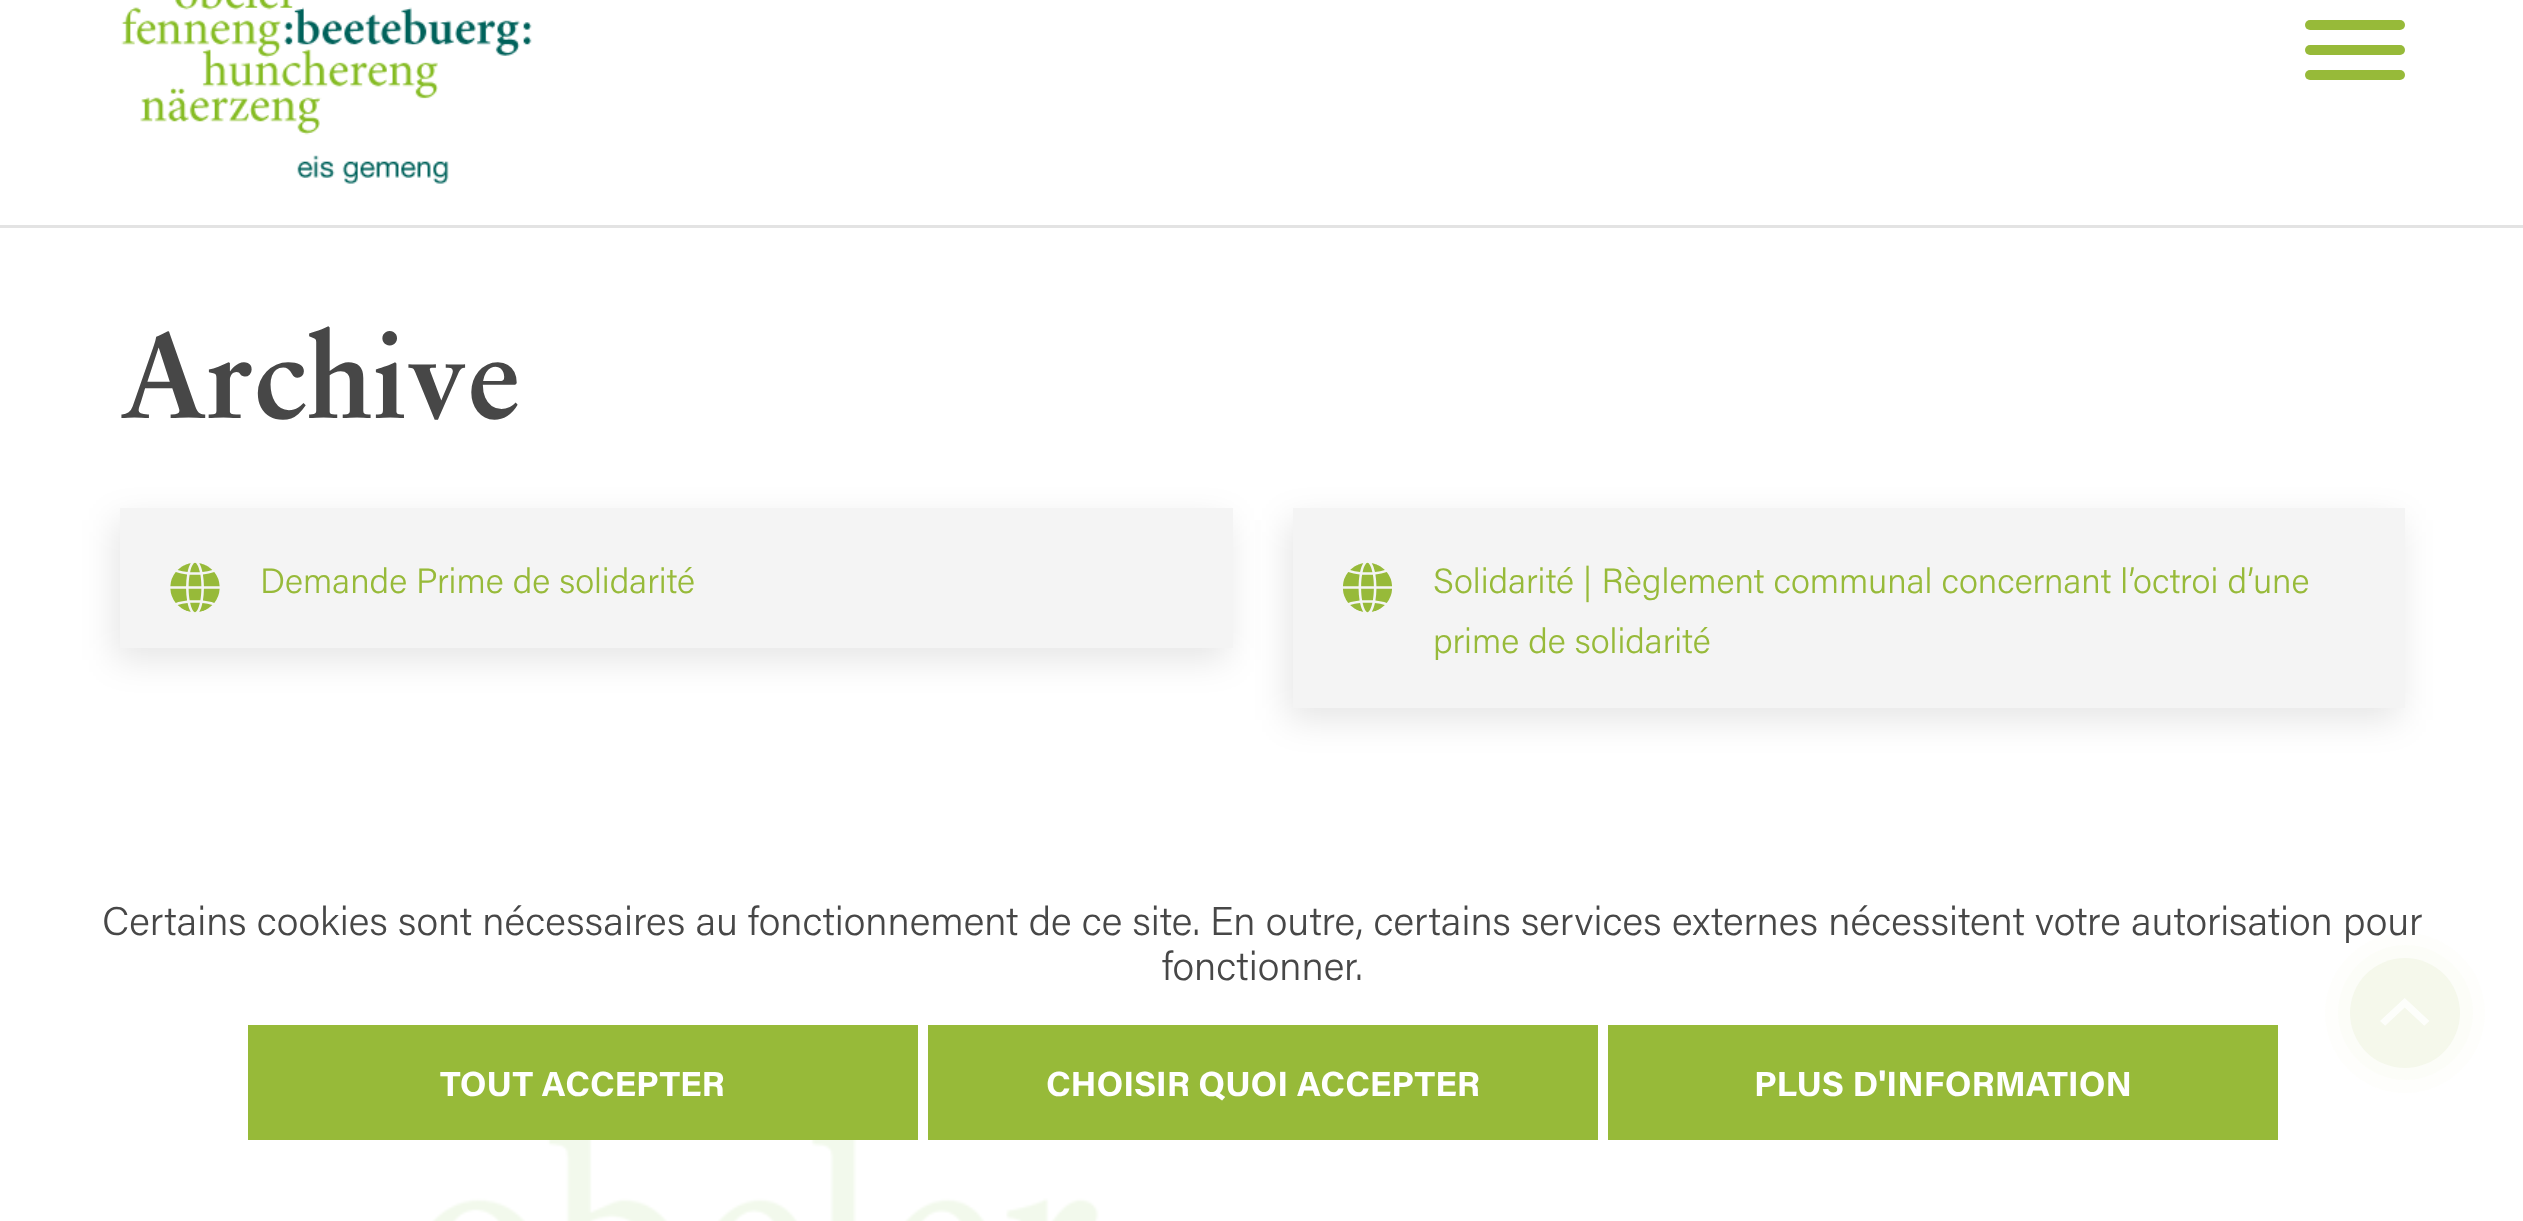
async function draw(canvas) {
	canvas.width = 2523;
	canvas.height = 1221;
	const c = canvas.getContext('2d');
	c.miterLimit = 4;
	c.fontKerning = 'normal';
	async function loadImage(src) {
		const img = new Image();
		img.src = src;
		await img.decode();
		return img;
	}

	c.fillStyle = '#fff';
	c.fillRect(0, 0, 2523, 1221);
	c.fillStyle = '#e3e3e3';
	c.fillRect(0, 225, 2523, 3);
	c.drawImage(await loadImage('img1.png'), 121, 0, 411, 184);
	c.fillStyle = '#97ba39';
	c.beginPath();
	c.roundRect(2305, 45, 100, 10, 5);
	c.fill();
	c.beginPath();
	c.roundRect(2305, 20, 100, 10, 5);
	c.fill();
	c.beginPath();
	c.roundRect(2305, 70, 100, 10, 5);
	c.fill();
	c.font = 'bold 120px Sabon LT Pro';
	c.fillStyle = '#474747';
	c.fillText('Archive', 120, 418);
	c.fillStyle = '#0000001a';
	c.filter = 'blur(17.5px)';
	c.beginPath();
	c.rect(115, 520, 1113, 140);
	c.fill();
	c.filter = 'none';
	c.fillStyle = '#f4f4f4';
	c.fillRect(120, 508, 1113, 140);
	c.drawImage(await loadImage('img2.png'), 170, 562, 50, 51);
	c.font = '300 35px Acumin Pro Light';
	c.fillStyle = '#97ba39';
	c.fillText('Demande Prime de solidarité', 260, 593);
	c.fillStyle = '#0000001a';
	c.filter = 'blur(17.5px)';
	c.beginPath();
	c.rect(1288, 520, 1112, 200);
	c.fill();
	c.filter = 'none';
	c.fillStyle = '#f4f4f4';
	c.fillRect(1293, 508, 1112, 200);
	c.drawImage(await loadImage('img3.png'), 1343, 562, 49, 51);
	c.fillStyle = '#97ba39';
	c.fillText('Solidarité | Règlement communal concernant l’octroi d’une', 1433, 593);
	c.fillText('prime de solidarité', 1433, 653);
	c.fillStyle = '#f5f8eb26';
	c.beginPath();
	c.arc(2405, 1013, 80, 0, 2 * Math.PI);
	c.fill();
	c.font = '300 40px Acumin Pro Light';
	c.fillStyle = '#474747';
	c.fillText('Certains cookies sont nécessaires au fonctionnement de ce site. En outre, certains services externes nécessitent votre autorisation pour', 102, 935);
	c.fillText('fonctionner.', 1162, 980);
	c.fillStyle = '#97ba39';
	c.fillRect(248, 1025, 670, 115);
	c.font = 'bold 35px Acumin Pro';
	c.fillStyle = '#fff';
	c.fillText('TOUT ACCEPTER', 440, 1096);
	c.fillStyle = '#97ba39';
	c.fillRect(928, 1025, 670, 115);
	c.fillStyle = '#fff';
	c.fillText('CHOISIR QUOI ACCEPTER', 1046, 1096);
	c.fillStyle = '#97ba39';
	c.fillRect(1608, 1025, 670, 115);
	c.fillStyle = '#fff';
	c.fillText('PLUS D\'INFORMATION', 1754, 1096);
	c.fillStyle = '#f5f8eb';
	c.beginPath();
	c.arc(2405, 1013, 55, 0, 2 * Math.PI);
	c.fill();
	c.drawImage(await loadImage('img4.png'), 2380, 998, 50, 28);
	c.fillStyle = '#f5f8eb36';
	c.beginPath();
	c.arc(2405.5, 1012.5, 67.5, 0, 2 * Math.PI);
	c.fill();
	c.drawImage(await loadImage('img5.png'), 431, 1140, 668, 81);
}

draw(document.querySelector('canvas'));
